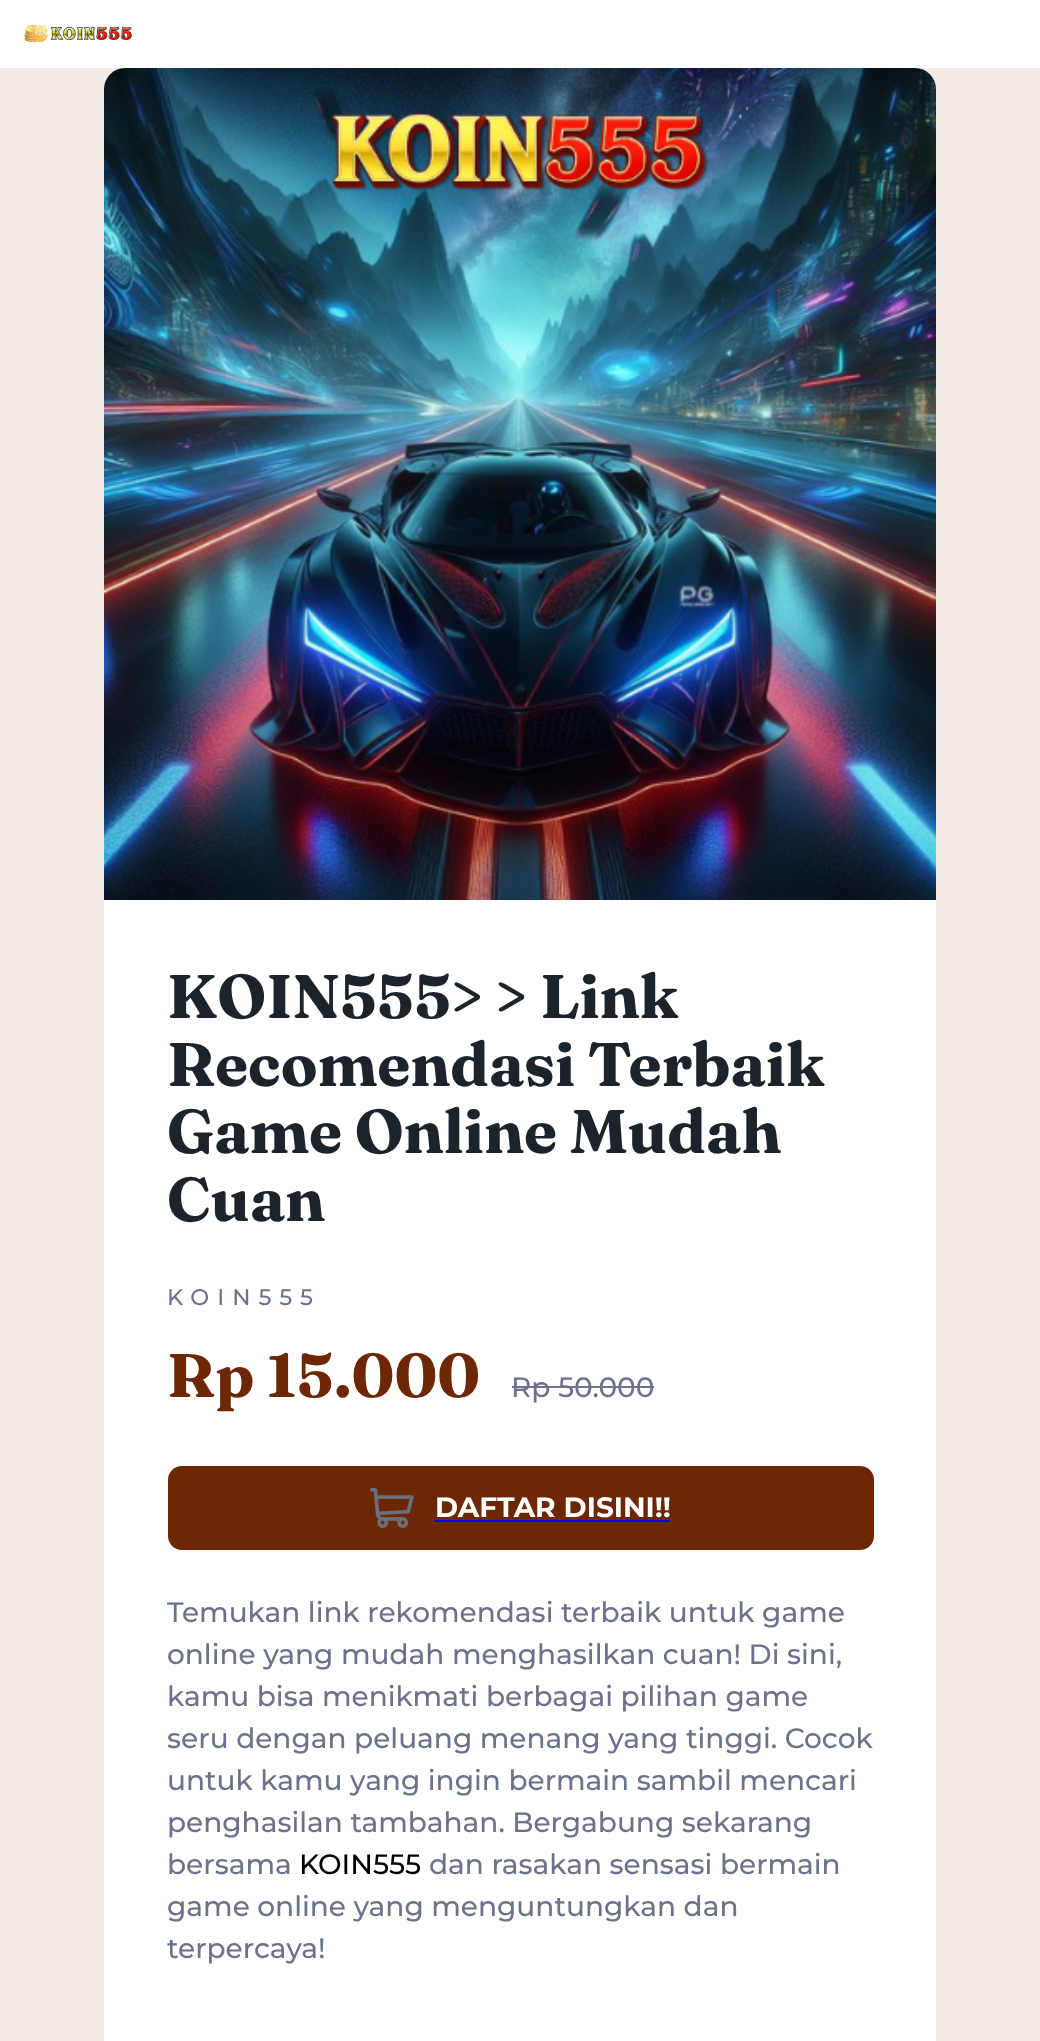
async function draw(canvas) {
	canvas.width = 1040;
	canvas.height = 2041;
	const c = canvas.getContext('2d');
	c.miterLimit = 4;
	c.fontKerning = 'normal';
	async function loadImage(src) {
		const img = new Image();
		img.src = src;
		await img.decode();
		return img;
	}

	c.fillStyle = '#fff';
	c.fillRect(0, 0, 1040, 2041);
	c.drawImage(await loadImage('img1.png'), 24, 24, 108, 19);
	c.fillStyle = '#f2ebe3';
	c.fillRect(0, 68, 1040, 1973);
	c.fillStyle = '#fff';
	c.beginPath();
	c.roundRect(104, 68, 832, 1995, 22);
	c.fill();
	c.drawImage(await loadImage('img2.png'), 104, 68, 832, 832);
	c.font = 'bold 61.6px Fraunces';
	c.fillStyle = '#1c232b';
	for (const [text, x, y] of [
		['KOIN555> > Link', 167, 1018],
		['Recomendasi Terbaik', 167, 1086],
		['Game Online Mudah', 167, 1153],
		['Cuan', 167, 1221],
	]) {
		c.fillText(text, x, y);
	}
	c.letterSpacing = '8px';
	c.font = '500 22.5px Montserrat';
	c.fillStyle = '#6c7289';
	c.fillText('KOIN555', 167, 1305);
	c.letterSpacing = '0px';
	c.font = 'bold 61.6px Fraunces';
	c.fillStyle = '#6d2705';
	c.fillText('Rp 15.000', 167, 1397);
	c.font = '500 28px Montserrat';
	c.fillStyle = '#6c7289';
	c.fillText('Rp 50.000', 511, 1397);
	c.fillRect(512, 1386, 142, 2);
	c.fillStyle = '#6d2705';
	c.beginPath();
	c.roundRect(168, 1466, 706, 84, 14);
	c.fill();
	c.drawImage(await loadImage('img3.png'), 370, 1488, 44, 40);
	c.font = 'bold 28px Montserrat';
	c.fillStyle = '#fff';
	c.fillText('DAFTAR DISINI!!', 435, 1517);
	c.fillStyle = '#00e';
	c.fillRect(434, 1520, 236, 2);
	c.font = '500 28px Montserrat';
	c.fillStyle = '#6c7289';
	for (const [text, x, y] of [
		['Temukan link rekomendasi terbaik untuk game', 167, 1622],
		['online yang mudah menghasilkan cuan! Di sini,', 167, 1664],
		['kamu bisa menikmati berbagai pilihan game', 167, 1706],
		['seru dengan peluang menang yang tinggi. Cocok', 167, 1748],
		['untuk kamu yang ingin bermain sambil mencari', 167, 1790],
		['penghasilan tambahan. Bergabung sekarang', 167, 1832],
		['bersama', 167, 1874],
	]) {
		c.fillText(text, x, y);
	}
	c.fillStyle = '#000';
	c.fillText('KOIN555', 299, 1874);
	c.fillStyle = '#6c7289';
	for (const [text, x, y] of [
		['dan rasakan sensasi bermain', 429, 1874],
		['game online yang menguntungkan dan', 167, 1916],
		['terpercaya!', 167, 1958],
	]) {
		c.fillText(text, x, y);
	}
}

draw(document.querySelector('canvas'));
